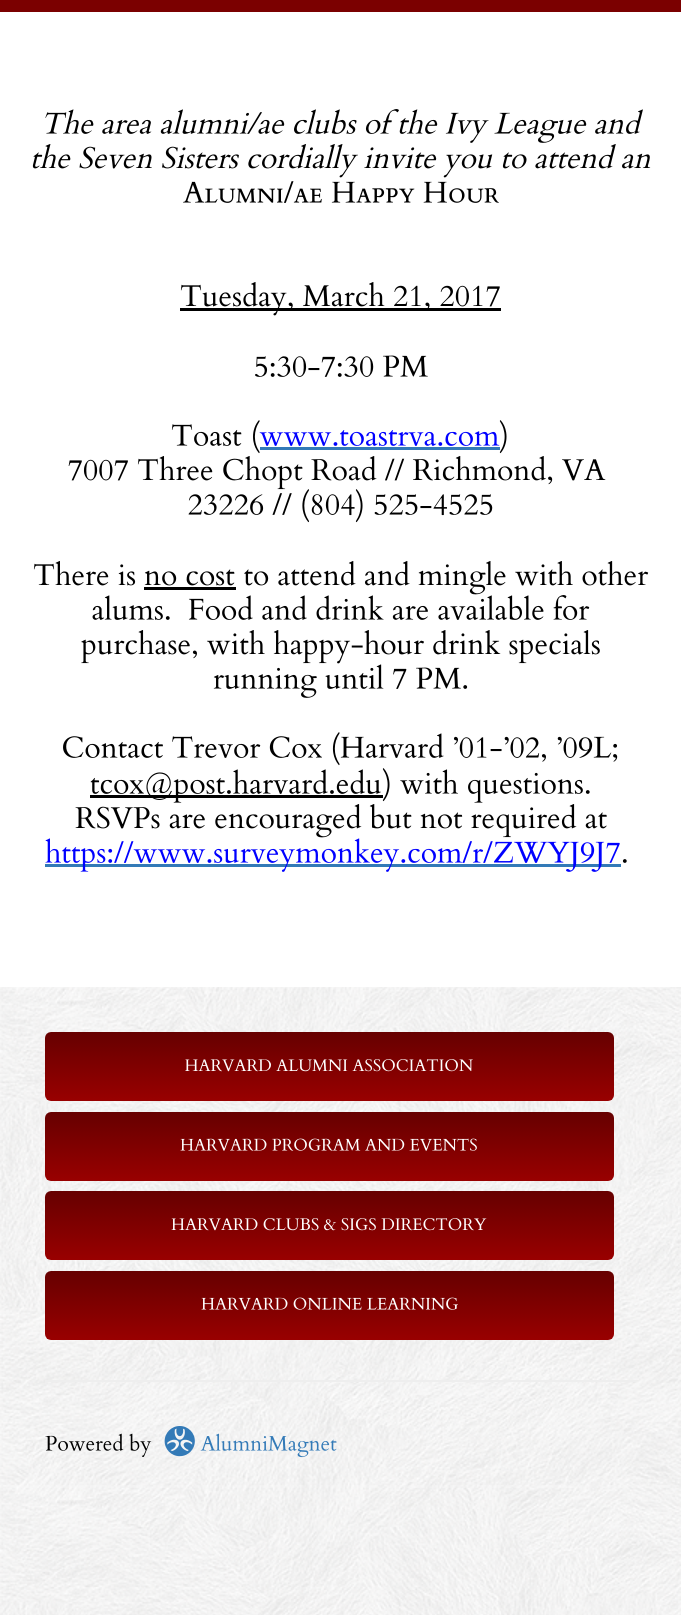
async function draw(canvas) {
	canvas.width = 681;
	canvas.height = 1615;
	const c = canvas.getContext('2d');
	c.miterLimit = 4;
	c.fontKerning = 'normal';
	async function loadImage(src) {
		const img = new Image();
		img.src = src;
		await img.decode();
		return img;
	}
	let gradient;

	c.fillStyle = '#fff';
	c.fillRect(0, 0, 681, 1615);
	c.fillStyle = '#7b0000';
	c.fillRect(0, 0, 681, 12);
	c.drawImage(await loadImage('img1.png'), 45, 109, 598, 34);
	c.drawImage(await loadImage('img2.png'), 32, 144, 619, 34);
	c.drawImage(await loadImage('img3.png'), 183, 181, 316, 22);
	c.fillStyle = '#000';
	c.fillRect(180, 308, 321, 3);
	c.drawImage(await loadImage('img4.png'), 180, 282, 320, 34);
	c.drawImage(await loadImage('img5.png'), 255, 355, 173, 22);
	c.drawImage(await loadImage('img6.png'), 171, 424, 71, 22);
	c.drawImage(await loadImage('img7.png'), 253, 420, 7, 34);
	c.drawImage(await loadImage('img8.png'), 259, 430, 241, 16);
	c.fillStyle = '#337ab7';
	c.fillRect(260, 447, 240, 3);
	c.drawImage(await loadImage('img9.png'), 499, 420, 8, 34);
	c.drawImage(await loadImage('img10.png'), 68, 456, 538, 34);
	c.drawImage(await loadImage('img11.png'), 188, 489, 305, 34);
	c.drawImage(await loadImage('img12.png'), 33, 561, 103, 25);
	c.drawImage(await loadImage('img13.png'), 144, 569, 91, 17);
	c.drawImage(await loadImage('img14.png'), 244, 561, 405, 34);
	c.fillStyle = '#000';
	c.fillRect(144, 587, 92, 3);
	c.drawImage(await loadImage('img15.png'), 92, 595, 498, 25);
	c.drawImage(await loadImage('img16.png'), 81, 630, 519, 34);
	c.drawImage(await loadImage('img17.png'), 213, 664, 255, 34);
	c.drawImage(await loadImage('img18.png'), 63, 732, 555, 34);
	c.fillRect(90, 795, 293, 3);
	c.drawImage(await loadImage('img19.png'), 90, 769, 291, 34);
	c.drawImage(await loadImage('img20.png'), 382, 768, 208, 35);
	c.drawImage(await loadImage('img21.png'), 75, 804, 532, 34);
	c.fillStyle = '#337ab7';
	c.fillRect(45, 864, 576, 3);
	c.drawImage(await loadImage('img22.png'), 45, 838, 575, 34);
	c.drawImage(await loadImage('img23.png'), 622, 859, 5, 4);
	c.drawImage(await loadImage('img24.png'), 0, 987, 681, 628);
	gradient = c.createLinearGradient(45, 1032, 45, 1101);
	gradient.addColorStop(0, '#600');
	gradient.addColorStop(1, '#900');
	c.fillStyle = gradient;
	c.beginPath();
	c.roundRect(45, 1032, 569, 69, 6);
	c.fill();
	c.drawImage(await loadImage('img25.png'), 185, 1059, 288, 13);
	gradient = c.createLinearGradient(45, 1112, 45, 1181);
	gradient.addColorStop(0, '#600');
	gradient.addColorStop(1, '#900');
	c.fillStyle = gradient;
	c.beginPath();
	c.roundRect(45, 1112, 569, 69, 6);
	c.fill();
	c.drawImage(await loadImage('img26.png'), 180, 1138, 297, 13);
	gradient = c.createLinearGradient(45, 1191, 45, 1260);
	gradient.addColorStop(0, '#600');
	gradient.addColorStop(1, '#900');
	c.fillStyle = gradient;
	c.beginPath();
	c.roundRect(45, 1191, 569, 69, 6);
	c.fill();
	c.drawImage(await loadImage('img27.png'), 171, 1218, 316, 13);
	gradient = c.createLinearGradient(45, 1271, 45, 1340);
	gradient.addColorStop(0, '#600');
	gradient.addColorStop(1, '#900');
	c.fillStyle = gradient;
	c.beginPath();
	c.roundRect(45, 1271, 569, 69, 6);
	c.fill();
	c.drawImage(await loadImage('img28.png'), 201, 1297, 257, 13);
	c.fillStyle = '#eee';
	c.fillRect(45, 1380, 591, 2);
	c.drawImage(await loadImage('img29.png'), 45, 1433, 107, 24);
	c.drawImage(await loadImage('img30.png'), 164, 1426, 31, 31);
	c.drawImage(await loadImage('img31.png'), 200, 1433, 137, 25);
}

draw(document.querySelector('canvas'));
